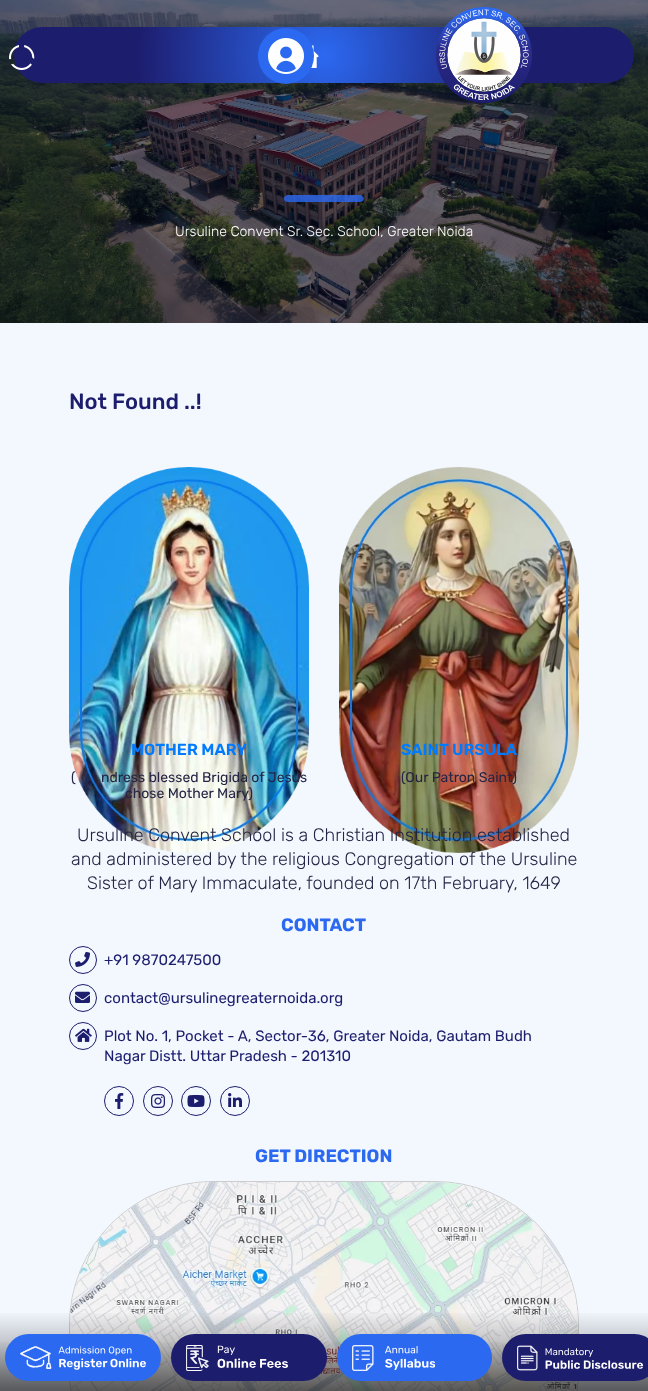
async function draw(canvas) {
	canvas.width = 648;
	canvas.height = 1391;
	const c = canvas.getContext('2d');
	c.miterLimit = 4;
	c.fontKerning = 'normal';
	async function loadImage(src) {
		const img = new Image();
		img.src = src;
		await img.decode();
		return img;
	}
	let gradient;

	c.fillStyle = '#f3f8ff';
	c.fillRect(0, 0, 648, 1391);
	c.drawImage(await loadImage('img5.png'), 0, 0, 648, 323);
	gradient = c.createRadialGradient(324, 55, 0, 324, 55, 311);
	gradient.addColorStop(0, '#2c69f1');
	gradient.addColorStop(0.6, '#1d1d6e');
	c.fillStyle = gradient;
	c.beginPath();
	c.roundRect(14, 27, 620, 56, 28);
	c.fill();
	c.drawImage(await loadImage('img1.png'), 9, 45, 26, 25);
	c.drawImage(await loadImage('img3.png'), 311, 45, 8, 23);
	c.fillStyle = '#2c69f1';
	c.beginPath();
	c.arc(286, 56, 28, 0, 2 * Math.PI);
	c.fill();
	c.drawImage(await loadImage('img2.png'), 268, 38, 36, 36);
	c.drawImage(await loadImage('img4.png'), 436, 7, 96, 96);
	c.save();
	c.beginPath();
	c.rect(284, 195, 80, 8);
	c.clip();
	c.fillStyle = '#2c69f1cc';
	c.beginPath();
	c.moveTo(360, 202);
	c.lineTo(288, 202);
	c.bezierCurveTo(286, 202, 284, 201, 284, 199);
	c.bezierCurveTo(284, 192, 299, 195, 300, 195);
	c.lineTo(361, 195);
	c.lineTo(363, 197);
	c.bezierCurveTo(365, 199, 363, 202, 360, 202);
	c.closePath();
	c.fill();
	c.restore();
	c.font = '300 14px Rubik';
	c.fillStyle = '#fff';
	c.fillText('Ursuline Convent Sr. Sec. School, Greater Noida', 175, 236);
	c.font = '500 22px Rubik';
	c.fillStyle = '#1d1d6e';
	c.fillText('Not Found ..!', 69, 409);
	c.drawImage(await loadImage('img6.png'), 69, 467, 240, 386);
	c.font = '600 16px Rubik';
	c.fillStyle = '#007bff';
	c.fillText('MOTHER MARY', 131, 755);
	c.font = '14px Rubik';
	c.fillStyle = '#242444';
	for (const [text, x, y] of [
		['(', 71, 782],
		['ndress blessed Brigida of Jesus', 101, 782],
		['chose Mother Mary)', 125, 798],
	]) {
		c.fillText(text, x, y);
	}
	c.drawImage(await loadImage('img7.png'), 339, 467, 240, 386);
	c.font = '600 16px Rubik';
	c.fillStyle = '#007bff';
	c.fillText('SAINT URSULA', 401, 755);
	c.font = '14px Rubik';
	c.fillStyle = '#242444';
	c.fillText('(Our Patron Saint)', 401, 782);
	c.font = '300 18px Rubik';
	for (const [text, x, y] of [
		['Ursuline Convent School is a Christian Institution established', 77, 841],
		['and administered by the religious Congregation of the Ursuline', 71, 865],
		['Sister of Mary Immaculate, founded on 17th February, 1649', 87, 889],
	]) {
		c.fillText(text, x, y);
	}
	c.font = 'bold 18px Rubik';
	c.fillStyle = '#2c69f1';
	c.fillText('CONTACT', 281, 931);
	c.beginPath();
	c.arc(83, 960, 13.5, 0, 2 * Math.PI);
	c.strokeStyle = '#1d1d6e';
	c.stroke();
	c.drawImage(await loadImage('img8.png'), 75, 951, 15, 16);
	c.font = '15px Rubik';
	c.fillStyle = '#1d1d6e';
	c.fillText('+91 9870247500', 104, 965);
	c.beginPath();
	c.arc(83, 998, 13.5, 0, 2 * Math.PI);
	c.stroke();
	c.drawImage(await loadImage('img9.png'), 75, 991, 15, 12);
	c.fillText('contact@ursulinegreaternoida.org', 104, 1003);
	c.beginPath();
	c.arc(83, 1036, 13.5, 0, 2 * Math.PI);
	c.stroke();
	c.drawImage(await loadImage('img10.png'), 75, 1028, 17, 14);
	c.fillText('Plot No. 1, Pocket - A, Sector-36, Greater Noida, Gautam Budh', 104, 1041);
	c.fillText('Nagar Distt. Uttar Pradesh - 201310', 104, 1061);
	c.beginPath();
	c.arc(119, 1101, 14.5, 0, 2 * Math.PI);
	c.stroke();
	c.drawImage(await loadImage('img11.png'), 115, 1093, 9, 16);
	c.beginPath();
	c.arc(158, 1101, 14.5, 0, 2 * Math.PI);
	c.stroke();
	c.drawImage(await loadImage('img12.png'), 151, 1094, 14, 14);
	c.beginPath();
	c.arc(196, 1101, 14.5, 0, 2 * Math.PI);
	c.stroke();
	c.drawImage(await loadImage('img13.png'), 187, 1095, 18, 12);
	c.beginPath();
	c.arc(235, 1101, 14.5, 0, 2 * Math.PI);
	c.stroke();
	c.drawImage(await loadImage('img14.png'), 228, 1093, 14, 14);
	c.font = 'bold 18px Rubik';
	c.fillStyle = '#2c69f1';
	c.fillText('GET DIRECTION', 255, 1162);
	c.beginPath();
	c.roundRect(69.5, 1181.5, 509, 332, 143.5);
	c.strokeStyle = '#ccc';
	c.stroke();
	c.drawImage(await loadImage('img15.png'), 70, 1182, 508, 209);
	gradient = c.createLinearGradient(324, 1391, 324, 1324);
	gradient.addColorStop(0, '#00000047');
	gradient.addColorStop(0.8, '#00000000');
	c.fillStyle = gradient;
	c.fillRect(0, 1342, 648, 49);
	gradient = c.createLinearGradient(324, 1391, 324, 1301);
	gradient.addColorStop(0, '#00000080');
	gradient.addColorStop(0.9, '#00000000');
	c.fillStyle = gradient;
	c.fillRect(0, 1313, 648, 78);
	c.fillStyle = '#2c69f1';
	c.beginPath();
	c.roundRect(5, 1334, 156, 47, 23.5);
	c.fill();
	c.drawImage(await loadImage('img16.png'), 20, 1346, 126, 24);
	c.fillStyle = '#1d1d6e';
	c.beginPath();
	c.roundRect(171, 1334, 156, 47, 23.5);
	c.fill();
	c.drawImage(await loadImage('img17.png'), 186, 1345, 102, 26);
	c.fillStyle = '#2c69f1';
	c.beginPath();
	c.roundRect(337, 1334, 155, 47, 23.5);
	c.fill();
	c.drawImage(await loadImage('img18.png'), 352, 1345, 83, 26);
	c.fillStyle = '#1d1d6e';
	c.beginPath();
	c.roundRect(502, 1334, 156, 47, 23.5);
	c.fill();
	c.drawImage(await loadImage('img19.png'), 517, 1345, 126, 26);
}

draw(document.querySelector('canvas'));
